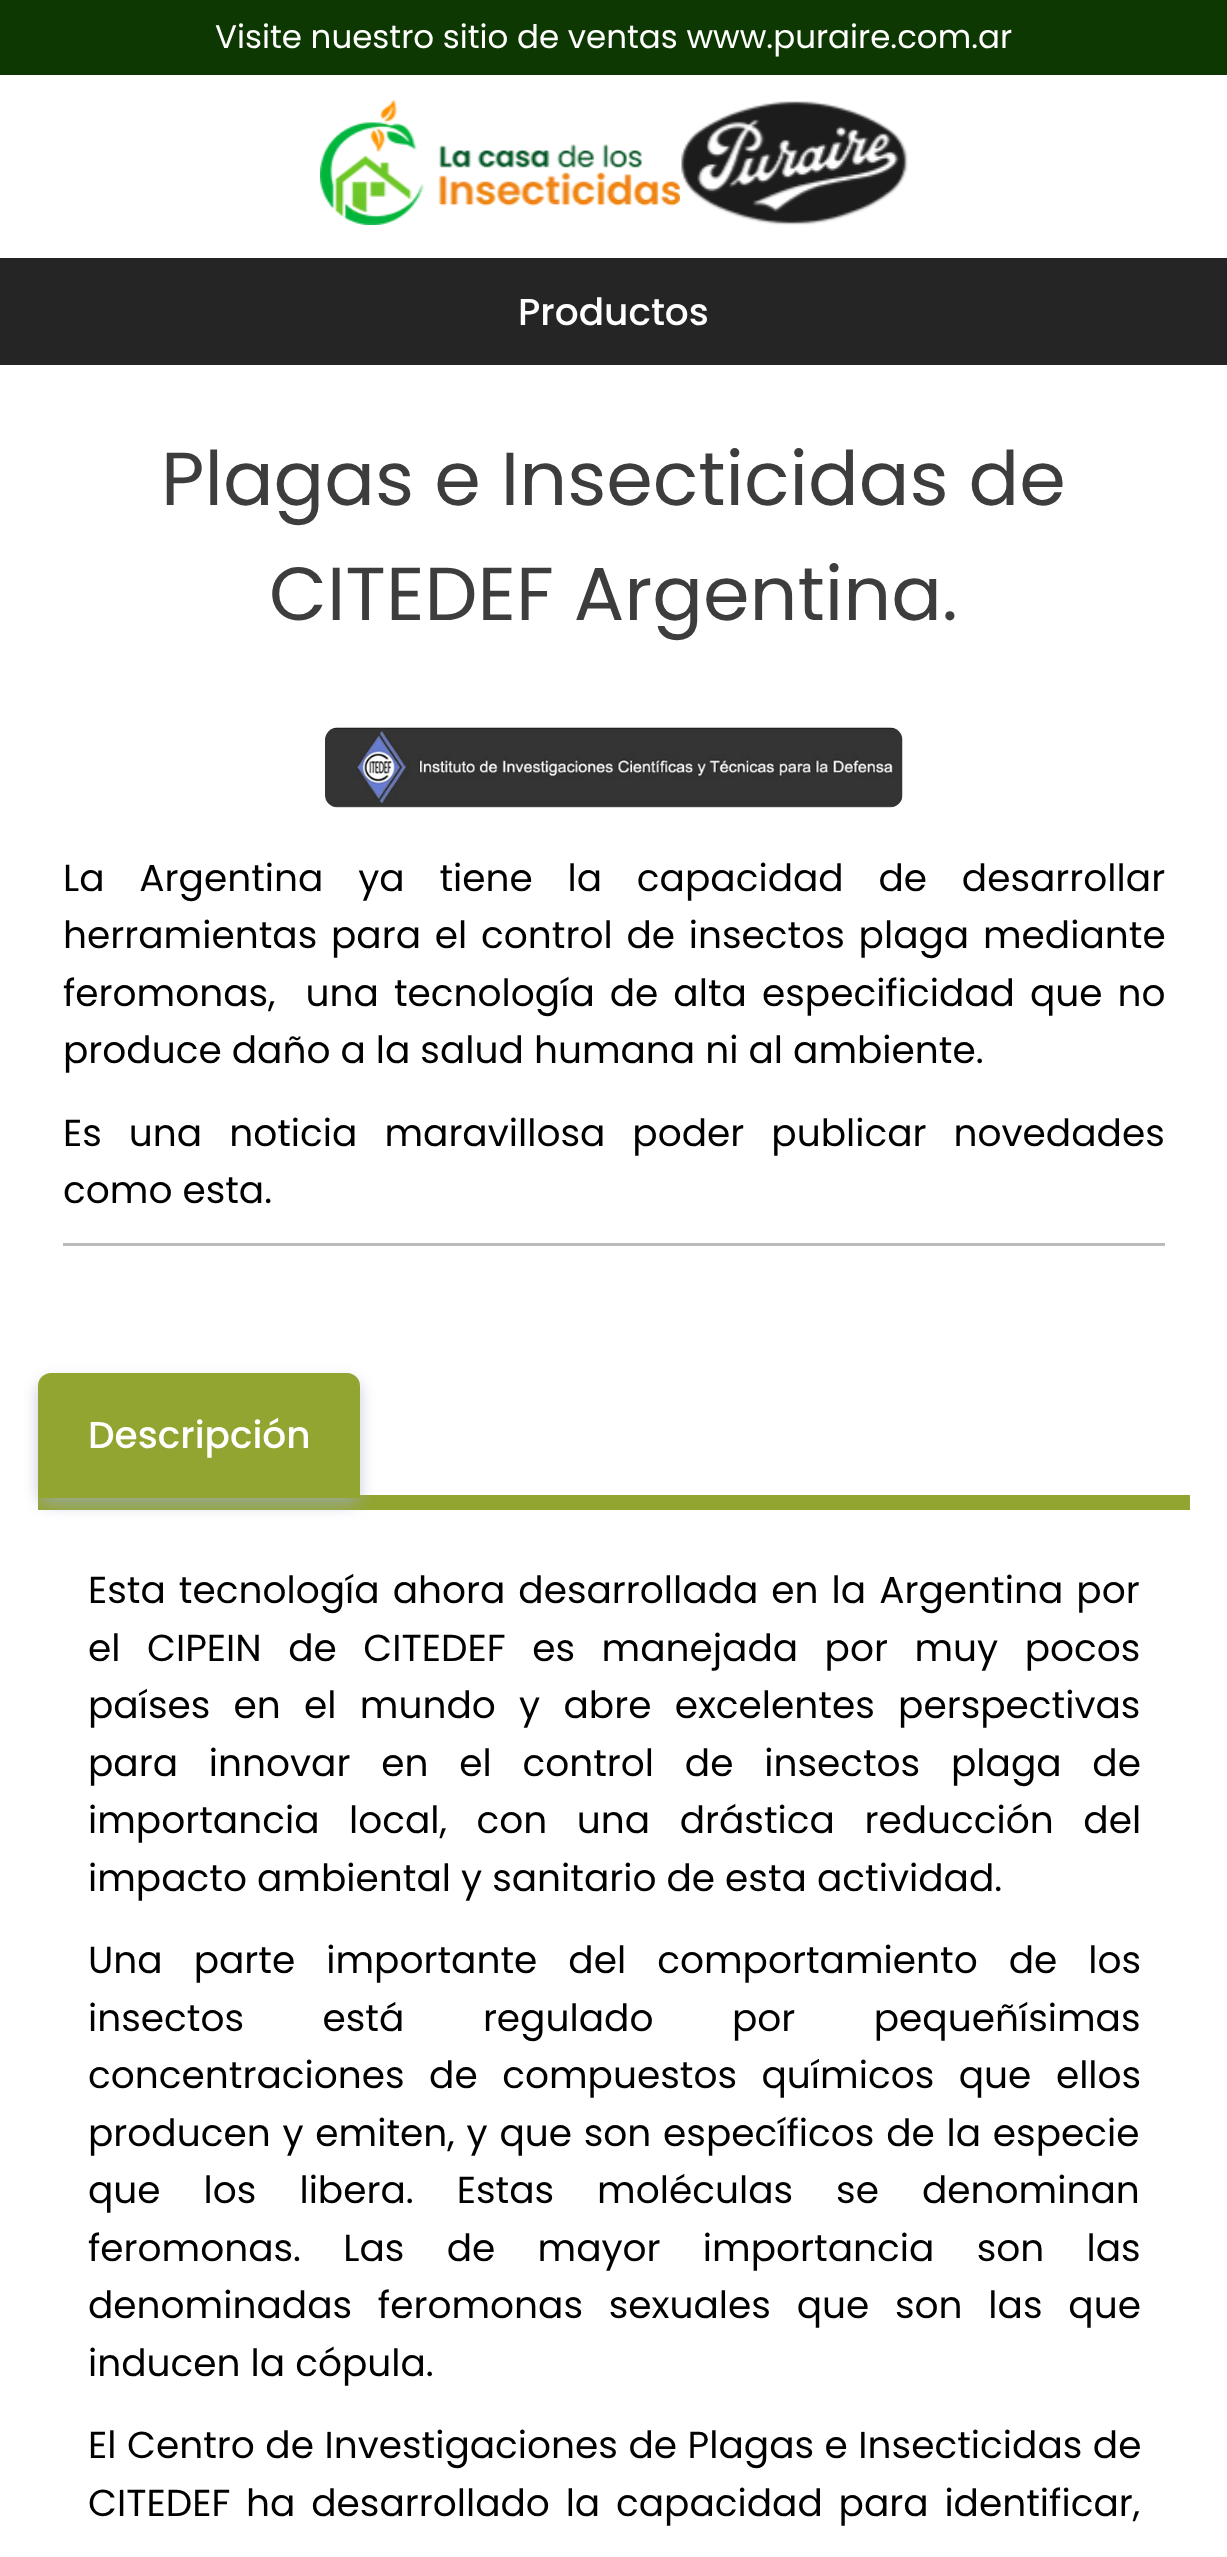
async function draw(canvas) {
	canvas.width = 1227;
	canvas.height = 2557;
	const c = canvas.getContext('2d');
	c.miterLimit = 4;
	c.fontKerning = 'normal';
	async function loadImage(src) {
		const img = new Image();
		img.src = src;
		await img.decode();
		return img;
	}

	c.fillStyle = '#fff';
	c.fillRect(0, 0, 1227, 2557);
	c.fillStyle = '#0e3801';
	c.fillRect(0, 0, 1227, 75);
	c.font = '32.5px Poppins';
	c.fillStyle = '#fff';
	c.fillText('Visite nuestro sitio de ventas www.puraire.com.ar', 215, 48);
	c.drawImage(await loadImage('img1.png'), 320, 100, 360, 125);
	c.drawImage(await loadImage('img2.png'), 681, 101, 227, 124);
	c.fillStyle = '#252525';
	c.fillRect(0, 258, 1227, 107);
	c.font = '500 37.5px Poppins';
	c.fillStyle = '#fff';
	c.fillText('Productos', 518, 325);
	c.font = '75px Poppins';
	c.fillStyle = '#3e3d3d';
	c.fillText('Plagas e Insecticidas de', 161, 505);
	c.fillText('CITEDEF Argentina.', 269, 620);
	c.drawImage(await loadImage('img3.png'), 325, 727, 578, 81);
	c.wordSpacing = '24.75px';
	c.font = '37.5px Poppins';
	c.fillStyle = '#000';
	c.fillText('La Argentina ya tiene la capacidad de desarrollar', 63, 891);
	c.wordSpacing = '3.75px';
	c.fillText('herramientas para el control de insectos plaga mediante', 63, 948);
	c.wordSpacing = '5px';
	c.fillText('feromonas,  una tecnología de alta especificidad que no', 63, 1006);
	c.wordSpacing = '0px';
	c.fillText('produce daño a la salud humana ni al ambiente.', 63, 1063);
	c.wordSpacing = '17px';
	c.fillText('Es una noticia maravillosa poder publicar novedades', 63, 1146);
	c.wordSpacing = '0px';
	c.fillText('como esta.', 63, 1203);
	c.fillStyle = '#bbb';
	c.fillRect(63, 1243, 1102, 3);
	c.fillStyle = '#92a531';
	c.fillRect(38, 1495, 1152, 15);
	c.fillStyle = '#a0a9c8a1';
	c.filter = 'blur(7.5px)';
	c.beginPath();
	c.roundRect(38, 1380, 322, 125, 13);
	c.fill();
	c.filter = 'none';
	c.fillStyle = '#92a531';
	c.beginPath();
	c.roundRect(38, 1373, 322, 125, [13, 13, 0, 0]);
	c.fill();
	c.font = '500 37.5px Poppins';
	c.fillStyle = '#fff';
	c.fillText('Descripción', 88, 1448);
	c.wordSpacing = '3px';
	c.font = '37.5px Poppins';
	c.fillStyle = '#000';
	c.fillText('Esta tecnología ahora desarrollada en la Argentina por', 88, 1603);
	c.wordSpacing = '16.5px';
	c.fillText('el CIPEIN de CITEDEF es manejada por muy pocos', 88, 1661);
	c.wordSpacing = '13.25px';
	c.fillText('países en el mundo y abre excelentes perspectivas', 88, 1718);
	c.wordSpacing = '20.75px';
	c.fillText('para innovar en el control de insectos plaga de', 88, 1776);
	c.wordSpacing = '19.5px';
	c.fillText('importancia local, con una drástica reducción del', 88, 1833);
	c.wordSpacing = '0px';
	c.fillText('impacto ambiental y sanitario de esta actividad.', 88, 1891);
	c.wordSpacing = '21px';
	c.fillText('Una parte importante del comportamiento de los', 88, 1973);
	c.wordSpacing = '68.5px';
	c.fillText('insectos está regulado por pequeñísimas', 88, 2031);
	c.wordSpacing = '14.5px';
	c.fillText('concentraciones de compuestos químicos que ellos', 88, 2088);
	c.wordSpacing = '1.75px';
	c.fillText('producen y emiten, y que son específicos de la especie', 88, 2146);
	c.wordSpacing = '33px';
	c.fillText('que los libera. Estas moléculas se denominan', 88, 2203);
	c.wordSpacing = '32.25px';
	c.fillText('feromonas. Las de mayor importancia son las', 88, 2261);
	c.wordSpacing = '15.75px';
	c.fillText('denominadas feromonas sexuales que son las que', 88, 2318);
	c.wordSpacing = '0px';
	c.fillText('inducen la cópula.', 88, 2376);
	c.wordSpacing = '0.5px';
	c.fillText('El Centro de Investigaciones de Plagas e Insecticidas de', 88, 2458);
	c.wordSpacing = '5.75px';
	c.fillText('CITEDEF ha desarrollado la capacidad para identificar,', 88, 2516);
}

draw(document.querySelector('canvas'));
